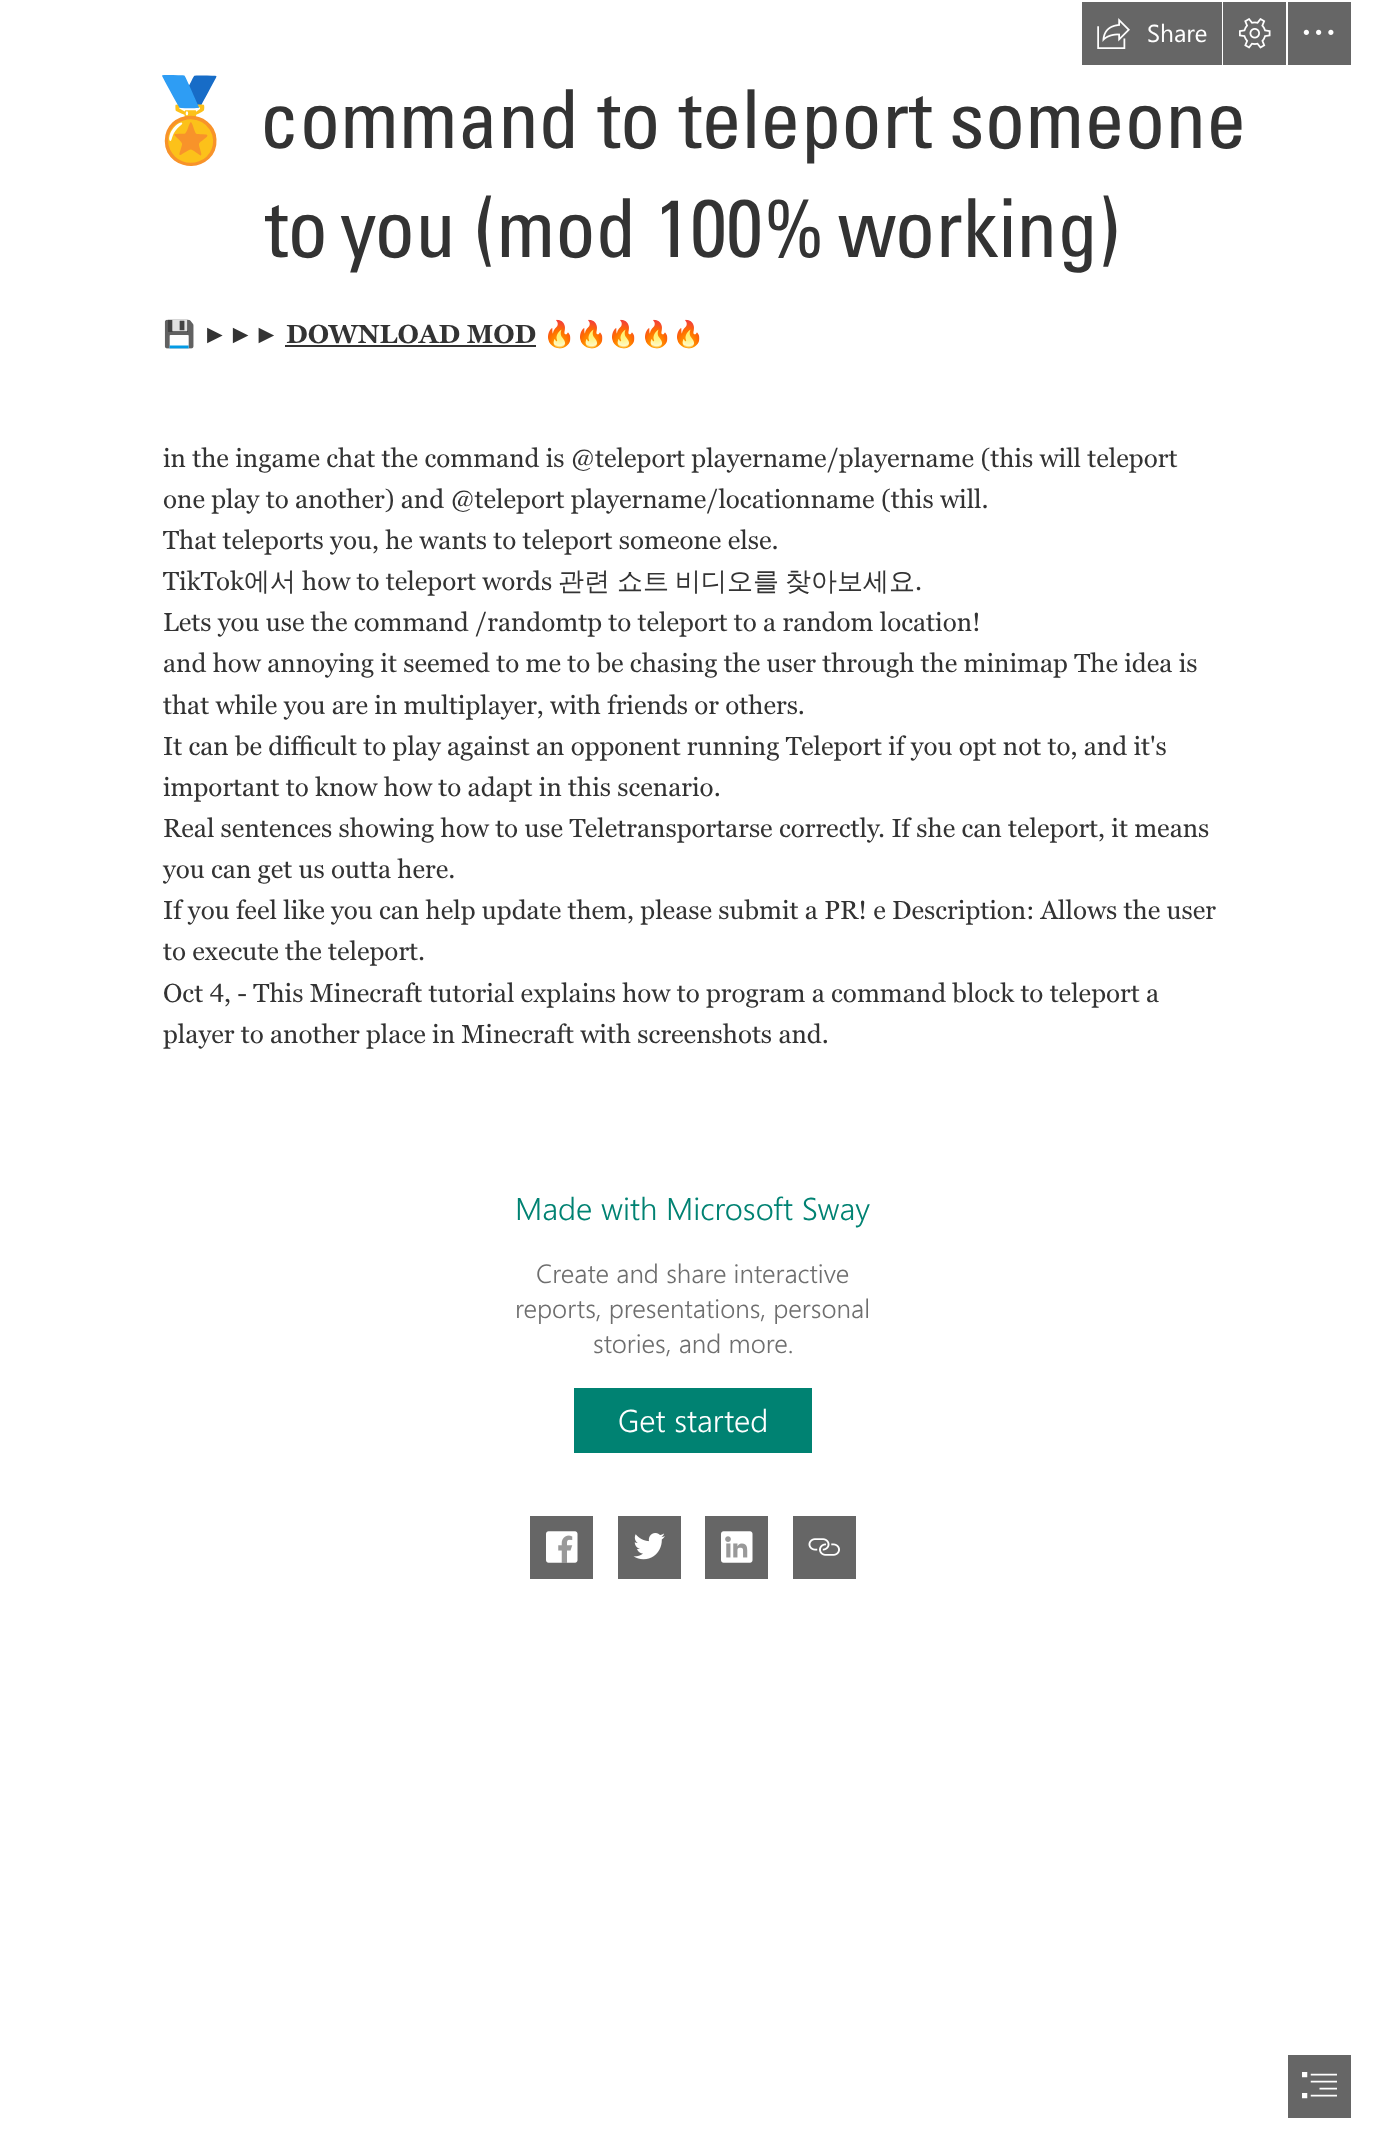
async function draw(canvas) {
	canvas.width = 1385;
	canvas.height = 2154;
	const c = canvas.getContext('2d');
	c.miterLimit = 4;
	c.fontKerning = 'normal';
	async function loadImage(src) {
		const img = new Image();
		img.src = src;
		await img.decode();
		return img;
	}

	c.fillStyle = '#fff';
	c.fillRect(0, 0, 1385, 2154);
	c.fillStyle = '#666';
	c.fillRect(1082, 2, 140, 63);
	c.drawImage(await loadImage('img1.png'), 1097, 18, 33, 31);
	c.font = '24.5px Segoe UI';
	c.fillStyle = '#fff';
	c.fillText('Share', 1147, 42);
	c.fillStyle = '#666';
	c.fillRect(1223, 2, 63, 63);
	c.drawImage(await loadImage('img2.png'), 1239, 18, 32, 31);
	c.fillRect(1288, 2, 63, 63);
	c.drawImage(await loadImage('img3.png'), 1303, 29, 31, 6);
	c.font = '81.25px Noto Color Emoji';
	c.fillStyle = '#333';
	c.fillText('🏅', 140, 148);
	c.font = '81.25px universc';
	c.fillText('command to teleport someone', 259, 148);
	c.fillText('to you (mod 100% working)', 265, 257);
	c.font = 'bold 26px Noto Color Emoji';
	c.fillText('💾', 163, 343);
	c.font = 'bold 26px Liberation Serif';
	c.fillText('►►►', 202, 343);
	c.font = 'bold 26px Georgia';
	c.fillText('DOWNLOAD MOD', 286, 343);
	c.fillRect(285, 345, 251, 2);
	c.font = 'bold 26px Noto Color Emoji';
	c.fillText('🔥🔥🔥🔥🔥', 543, 343);
	c.font = '26px Georgia';
	for (const [text, x, y] of [
		['in the ingame chat the command is @teleport playername/playername (this will teleport', 163, 467],
		['one play to another) and @teleport playername/locationname (this will.', 163, 508],
		['That teleports you, he wants to teleport someone else.', 163, 549],
		['TikTok', 163, 590],
	]) {
		c.fillText(text, x, y);
	}
	c.font = '500 26px WenQuanYi Zen Hei';
	c.fillText('에서', 244, 590);
	c.font = '26px Georgia';
	c.fillText('how to teleport words', 302, 590);
	c.font = '500 26px WenQuanYi Zen Hei';
	for (const [text, x, y] of [
		['관련', 558, 590],
		['쇼트', 617, 590],
		['비디오를', 675, 590],
		['찾아보세요', 785, 590],
	]) {
		c.fillText(text, x, y);
	}
	c.font = '26px Georgia';
	for (const [text, x, y] of [
		['.', 915, 590],
		['Lets you use the command /randomtp to teleport to a random location!', 163, 631],
		['and how annoying it seemed to me to be chasing the user through the minimap The idea is', 163, 672],
		['that while you are in multiplayer, with friends or others.', 163, 714],
		['It can be difficult to play against an opponent running Teleport if you opt not to, and it\'s', 163, 755],
		['important to know how to adapt in this scenario.', 163, 796],
		['Real sentences showing how to use Teletransportarse correctly. If she can teleport, it means', 163, 837],
		['you can get us outta here.', 163, 878],
		['If you feel like you can help update them, please submit a PR! e Description: Allows the user', 163, 919],
		['to execute the teleport.', 163, 960],
		['Oct 4, - This Minecraft tutorial explains how to program a command block to teleport a', 163, 1002],
		['player to another place in Minecraft with screenshots and.', 163, 1043],
	]) {
		c.fillText(text, x, y);
	}
	c.font = '300 31.5px Segoe UI';
	c.fillStyle = '#008272';
	c.fillText('Made with Microsoft Sway', 515, 1220);
	c.font = '300 26.25px Segoe UI';
	c.fillStyle = '#6e6e6e';
	for (const [text, x, y] of [
		['Create and share interactive', 536, 1283],
		['reports, presentations, personal', 515, 1318],
		['stories, and more.', 593, 1353],
	]) {
		c.fillText(text, x, y);
	}
	c.fillStyle = '#008272';
	c.fillRect(574, 1388, 238, 65);
	c.font = '300 31.5px Segoe UI';
	c.fillStyle = '#fff';
	c.fillText('Get started', 618, 1432);
	c.fillStyle = '#666';
	c.fillRect(530, 1516, 63, 63);
	c.drawImage(await loadImage('img4.png'), 546, 1531, 32, 32);
	c.drawImage(await loadImage('img5.png'), 558, 1535, 15, 28);
	c.fillRect(618, 1516, 63, 63);
	c.drawImage(await loadImage('img6.png'), 633, 1533, 32, 27);
	c.fillRect(705, 1516, 63, 63);
	c.drawImage(await loadImage('img4.png'), 721, 1531, 32, 32);
	c.drawImage(await loadImage('img7.png'), 725, 1536, 23, 22);
	c.fillRect(793, 1516, 63, 63);
	c.drawImage(await loadImage('img8.png'), 808, 1538, 32, 18);
	c.fillRect(1288, 2055, 63, 63);
	c.drawImage(await loadImage('img9.png'), 1302, 2072, 35, 27);
}

draw(document.querySelector('canvas'));
